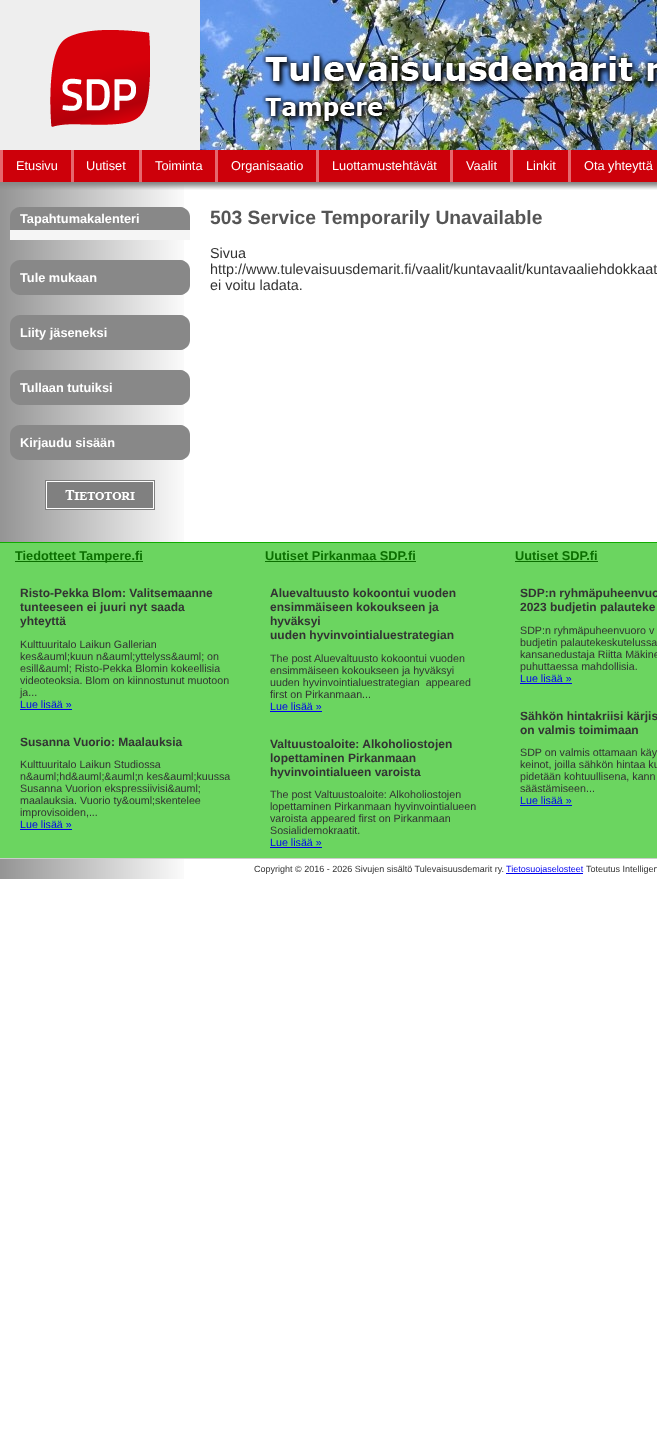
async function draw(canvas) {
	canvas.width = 657;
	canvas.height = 1444;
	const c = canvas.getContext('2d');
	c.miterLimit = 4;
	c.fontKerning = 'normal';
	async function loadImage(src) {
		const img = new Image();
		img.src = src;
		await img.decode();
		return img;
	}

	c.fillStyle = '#fff';
	c.fillRect(0, 0, 657, 1444);
	c.drawImage(await loadImage('img1.png'), 0, 183, 184, 696);
	c.fillStyle = '#eee';
	c.fillRect(0, 0, 200, 150);
	c.drawImage(await loadImage('img2.png'), 50, 30, 100, 97);
	c.drawImage(await loadImage('img3.png'), 200, 0, 457, 150);
	c.drawImage(await loadImage('img4.png'), 262, 52, 395, 76);
	c.fillStyle = '#cd000a';
	c.fillRect(3, 150, 654, 32);
	c.fillStyle = '#e6686e';
	c.fillRect(0, 150, 3, 32);
	c.font = '12.75px Liberation Sans';
	c.fillStyle = '#fff';
	c.fillText('Etusivu', 16, 170);
	c.fillStyle = '#e6686e';
	c.fillRect(71, 150, 3, 32);
	c.fillStyle = '#fff';
	c.fillText('Uutiset', 86, 170);
	c.fillStyle = '#e6686e';
	c.fillRect(139, 150, 3, 32);
	c.fillStyle = '#fff';
	c.fillText('Toiminta', 155, 170);
	c.fillStyle = '#e6686e';
	c.fillRect(215, 150, 3, 32);
	c.fillStyle = '#fff';
	c.fillText('Organisaatio', 231, 170);
	c.fillStyle = '#e6686e';
	c.fillRect(316, 150, 3, 32);
	c.fillStyle = '#fff';
	c.fillText('Luottamustehtävät', 332, 170);
	c.fillStyle = '#e6686e';
	c.fillRect(450, 150, 3, 32);
	c.fillStyle = '#fff';
	c.fillText('Vaalit', 466, 170);
	c.fillStyle = '#e6686e';
	c.fillRect(510, 150, 3, 32);
	c.fillStyle = '#fff';
	c.fillText('Linkit', 526, 170);
	c.fillStyle = '#e6686e';
	c.fillRect(568, 150, 3, 32);
	c.fillStyle = '#fff';
	c.fillText('Ota yhteyttä', 584, 170);
	c.drawImage(await loadImage('img5.png'), 0, 182, 657, 8);
	c.drawImage(await loadImage('img6.png'), 10, 207, 180, 23);
	c.font = 'bold 12.75px Liberation Sans';
	c.fillText('Tapahtumakalenteri', 20, 223);
	c.fillStyle = '#f5f5f5';
	c.fillRect(10, 230, 180, 10);
	c.drawImage(await loadImage('img6.png'), 10, 260, 180, 23);
	c.drawImage(await loadImage('img7.png'), 10, 283, 180, 12);
	c.fillStyle = '#fff';
	c.fillText('Tule mukaan', 20, 282);
	c.drawImage(await loadImage('img6.png'), 10, 315, 180, 23);
	c.drawImage(await loadImage('img7.png'), 10, 338, 180, 12);
	c.fillText('Liity jäseneksi', 20, 337);
	c.drawImage(await loadImage('img6.png'), 10, 370, 180, 23);
	c.drawImage(await loadImage('img7.png'), 10, 393, 180, 12);
	c.fillText('Tullaan tutuiksi', 20, 392);
	c.drawImage(await loadImage('img6.png'), 10, 425, 180, 23);
	c.drawImage(await loadImage('img7.png'), 10, 448, 180, 12);
	c.fillText('Kirjaudu sisään', 20, 447);
	c.drawImage(await loadImage('img8.png'), 45, 480, 110, 30);
	c.font = 'bold 19.25px Liberation Sans';
	c.fillStyle = '#555';
	c.fillText('503 Service Temporarily Unavailable', 210, 224);
	c.font = '14.4px Liberation Sans';
	c.fillStyle = '#333';
	for (const [text, x, y] of [
		['Sivua', 210, 258],
		['http://www.tulevaisuusdemarit.fi/vaalit/kuntavaalit/kuntavaaliehdokkaat', 210, 274],
		['ei voitu ladata.', 210, 290],
	]) {
		c.fillText(text, x, y);
	}
	for (const [x, y, w, h, color] of [
		[0, 543, 657, 315, '#6bd560'],
		[0, 542, 657, 1, '#10ab00'],
		[15, 561, 128, 1, '#0b6f00'],
	]) {
		c.fillStyle = color;
		c.fillRect(x, y, w, h);
	}
	c.font = 'bold 12.75px Liberation Sans';
	c.fillText('Tiedotteet Tampere.fi', 15, 560);
	c.font = 'bold 12px Liberation Sans';
	c.fillStyle = '#333';
	for (const [text, x, y] of [
		['Risto-Pekka Blom: Valitsemaanne', 20, 597],
		['tunteeseen ei juuri nyt saada', 20, 611],
		['yhteyttä', 20, 625],
	]) {
		c.fillText(text, x, y);
	}
	c.font = '10.7px Liberation Sans';
	for (const [text, x, y] of [
		['Kulttuuritalo Laikun Gallerian', 20, 648],
		['kes&auml;kuun n&auml;yttelyss&auml; on', 20, 660],
		['esill&auml; Risto-Pekka Blomin kokeellisia', 20, 672],
		['videoteoksia. Blom on kiinnostunut muotoon', 20, 684],
		['ja...', 20, 696],
	]) {
		c.fillText(text, x, y);
	}
	c.fillStyle = '#00e';
	c.fillText('Lue lisää »', 20, 708);
	c.fillRect(20, 709, 52, 1);
	c.font = 'bold 12px Liberation Sans';
	c.fillStyle = '#333';
	c.fillText('Susanna Vuorio: Maalauksia', 20, 746);
	c.font = '10.7px Liberation Sans';
	for (const [text, x, y] of [
		['Kulttuuritalo Laikun Studiossa', 20, 768],
		['n&auml;hd&auml;&auml;n kes&auml;kuussa', 20, 780],
		['Susanna Vuorion ekspressiivisi&auml;', 20, 792],
		['maalauksia. Vuorio ty&ouml;skentelee', 20, 804],
		['improvisoiden,...', 20, 816],
	]) {
		c.fillText(text, x, y);
	}
	c.fillStyle = '#00e';
	c.fillText('Lue lisää »', 20, 828);
	c.fillRect(20, 829, 52, 1);
	c.font = 'bold 12.75px Liberation Sans';
	c.fillStyle = '#0b6f00';
	c.fillText('Uutiset Pirkanmaa SDP.fi', 265, 560);
	c.fillRect(265, 561, 151, 1);
	c.font = 'bold 12px Liberation Sans';
	c.fillStyle = '#333';
	for (const [text, x, y] of [
		['Aluevaltuusto kokoontui vuoden', 270, 597],
		['ensimmäiseen kokoukseen ja', 270, 611],
		['hyväksyi', 270, 625],
		['uuden hyvinvointialuestrategian', 270, 639],
	]) {
		c.fillText(text, x, y);
	}
	c.font = '10.7px Liberation Sans';
	for (const [text, x, y] of [
		['The post Aluevaltuusto kokoontui vuoden', 270, 662],
		['ensimmäiseen kokoukseen ja hyväksyi', 270, 674],
		['uuden hyvinvointialuestrategian  appeared', 270, 686],
		['first on Pirkanmaan...', 270, 698],
	]) {
		c.fillText(text, x, y);
	}
	c.fillStyle = '#00e';
	c.fillText('Lue lisää »', 270, 710);
	c.fillRect(270, 711, 52, 1);
	c.font = 'bold 12px Liberation Sans';
	c.fillStyle = '#333';
	for (const [text, x, y] of [
		['Valtuustoaloite: Alkoholiostojen', 270, 748],
		['lopettaminen Pirkanmaan', 270, 762],
		['hyvinvointialueen varoista', 270, 776],
	]) {
		c.fillText(text, x, y);
	}
	c.font = '10.7px Liberation Sans';
	for (const [text, x, y] of [
		['The post Valtuustoaloite: Alkoholiostojen', 270, 798],
		['lopettaminen Pirkanmaan hyvinvointialueen', 270, 810],
		['varoista appeared first on Pirkanmaan', 270, 822],
		['Sosialidemokraatit.', 270, 834],
	]) {
		c.fillText(text, x, y);
	}
	c.fillStyle = '#00e';
	c.fillText('Lue lisää »', 270, 846);
	c.fillRect(270, 847, 52, 1);
	c.font = 'bold 12.75px Liberation Sans';
	c.fillStyle = '#0b6f00';
	c.fillText('Uutiset SDP.fi', 515, 560);
	c.fillRect(515, 561, 83, 1);
	c.font = 'bold 12px Liberation Sans';
	c.fillStyle = '#333';
	c.fillText('SDP:n ryhmäpuheenvuo', 520, 597);
	c.fillText('2023 budjetin palauteke', 520, 611);
	c.font = '10.7px Liberation Sans';
	for (const [text, x, y] of [
		['SDP:n ryhmäpuheenvuoro v', 520, 634],
		['budjetin palautekeskutelussa', 520, 646],
		['kansanedustaja Riitta Mäkine', 520, 658],
		['puhuttaessa mahdollisia.', 520, 670],
	]) {
		c.fillText(text, x, y);
	}
	c.fillStyle = '#00e';
	c.fillText('Lue lisää »', 520, 682);
	c.fillRect(520, 683, 52, 1);
	c.font = 'bold 12px Liberation Sans';
	c.fillStyle = '#333';
	c.fillText('Sähkön hintakriisi kärjis', 520, 720);
	c.fillText('on valmis toimimaan', 520, 734);
	c.font = '10.7px Liberation Sans';
	for (const [text, x, y] of [
		['SDP on valmis ottamaan käy', 520, 756],
		['keinot, joilla sähkön hintaa ku', 520, 768],
		['pidetään kohtuullisena, kann', 520, 780],
		['säästämiseen...', 520, 792],
	]) {
		c.fillText(text, x, y);
	}
	c.fillStyle = '#00e';
	c.fillText('Lue lisää »', 520, 804);
	c.fillRect(520, 805, 52, 1);
	c.fillStyle = '#ccc';
	c.fillRect(0, 858, 657, 1);
	c.font = '9px Liberation Sans';
	c.fillStyle = '#333';
	c.fillText('Copyright © 2016 - 2026 Sivujen sisältö Tulevaisuusdemarit ry.', 254, 872);
	c.fillStyle = '#00e';
	c.fillRect(506, 873, 77, 1);
	c.fillText('Tietosuojaselosteet', 506, 872);
	c.fillStyle = '#333';
	c.fillText('Toteutus Intelligen', 586, 872);
}

draw(document.querySelector('canvas'));
